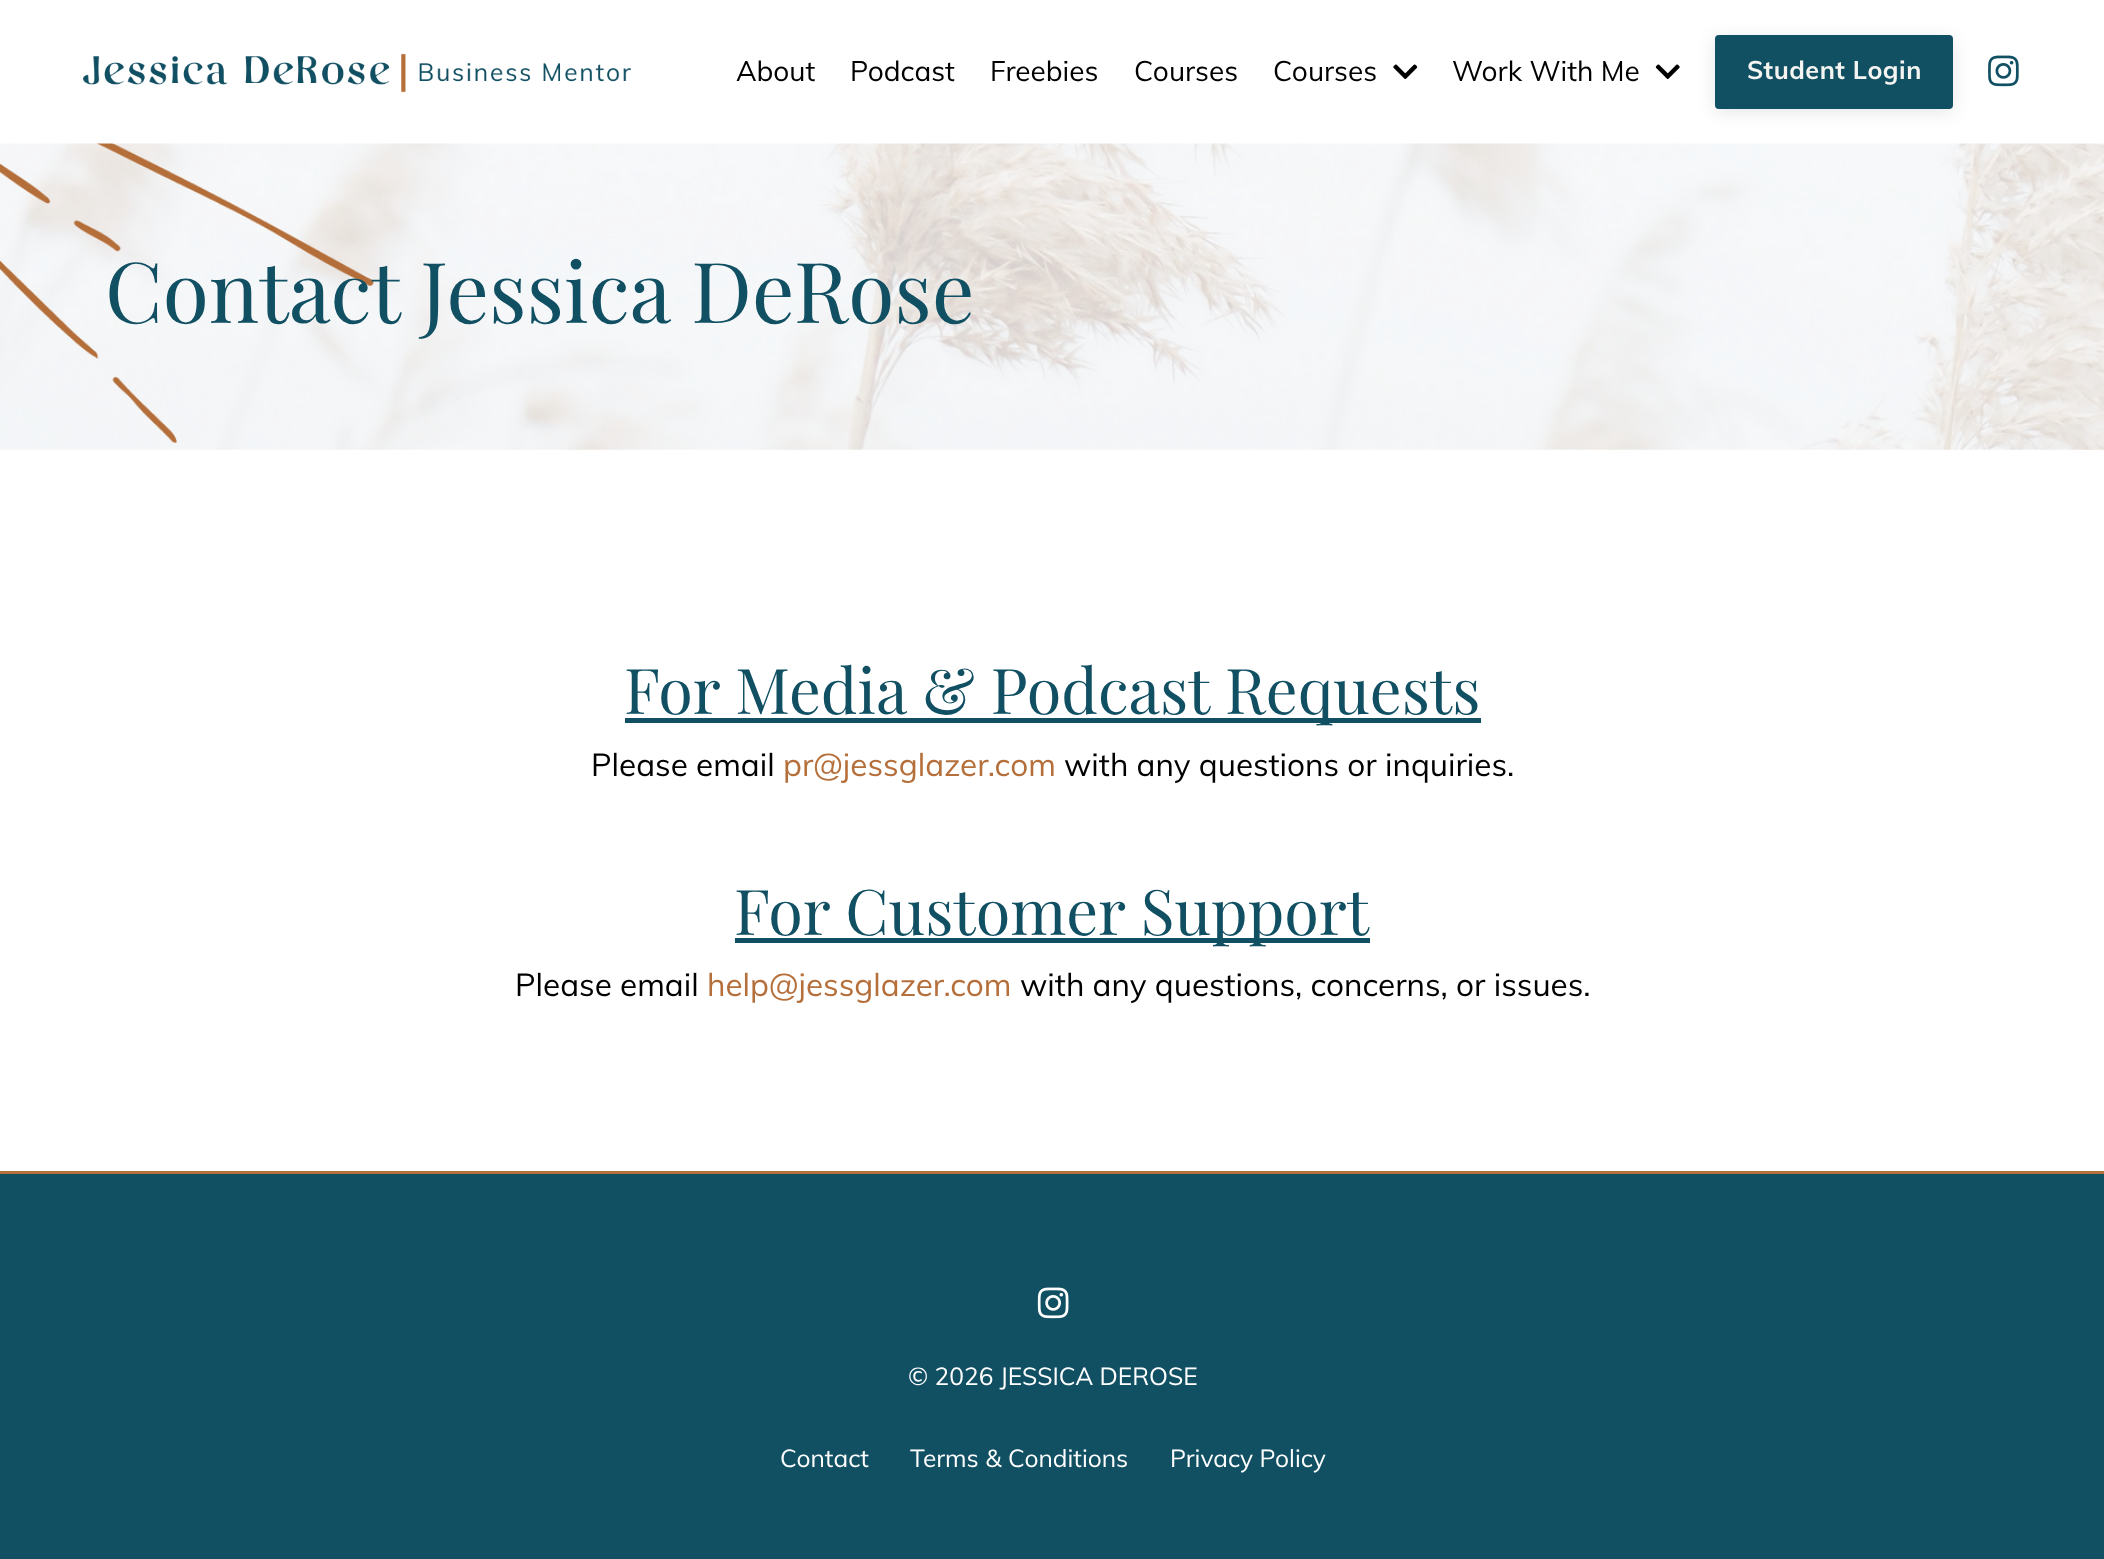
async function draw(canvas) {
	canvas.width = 2104;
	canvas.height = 1559;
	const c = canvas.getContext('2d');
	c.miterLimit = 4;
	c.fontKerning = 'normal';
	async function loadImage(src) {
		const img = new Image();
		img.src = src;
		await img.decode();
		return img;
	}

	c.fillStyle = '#fff';
	c.fillRect(0, 0, 2104, 1559);
	c.drawImage(await loadImage('img1.png'), 83, 53, 548, 40);
	c.font = '28px Muli';
	c.fillStyle = '#000';
	for (const [text, x, y] of [
		['About', 736, 81],
		['Podcast', 850, 81],
		['Freebies', 990, 81],
		['Courses', 1134, 81],
		['Courses', 1273, 81],
	]) {
		c.fillText(text, x, y);
	}
	c.drawImage(await loadImage('img2.png'), 1393, 64, 25, 15);
	c.fillText('Work With Me', 1452, 81);
	c.drawImage(await loadImage('img3.png'), 1655, 64, 25, 15);
	c.fillStyle = '#0000001a';
	c.filter = 'blur(9px)';
	c.beginPath();
	c.roundRect(1715, 39, 238, 73, 4);
	c.fill();
	c.filter = 'none';
	c.fillStyle = '#114f63';
	c.beginPath();
	c.roundRect(1717, 37, 234, 70, 2);
	c.fill();
	c.strokeStyle = '#114f63';
	c.lineWidth = 4;
	c.stroke();
	c.letterSpacing = '0.5px';
	c.font = 'bold 25.25px Muli';
	c.fillStyle = '#f4f5f1';
	c.fillText('Student Login', 1747, 79);
	c.drawImage(await loadImage('img4.png'), 1988, 55, 31, 32);
	c.drawImage(await loadImage('img5.png'), 0, 143, 2104, 307);
	c.letterSpacing = '0px';
	c.font = '84px Playfair Display';
	c.fillStyle = '#114f63';
	c.fillText('Contact Jessica DeRose', 105, 323);
	c.fillRect(625, 718, 856, 5);
	c.font = '63px Playfair Display';
	c.fillText('For Media & Podcast Requests', 624, 714);
	c.font = '31.5px Muli';
	c.fillStyle = '#000';
	c.fillText('Please email', 591, 776);
	c.fillStyle = '#b56f3b';
	c.fillText('pr@jessglazer.com', 783, 776);
	c.fillStyle = '#000';
	c.fillText('with any questions or inquiries.', 1064, 776);
	c.fillStyle = '#114f63';
	c.fillRect(735, 938, 635, 5);
	c.font = '63px Playfair Display';
	c.fillText('For Customer Support', 734, 935);
	c.font = '31.5px Muli';
	c.fillStyle = '#000';
	c.fillText('Please email', 515, 996);
	c.fillStyle = '#b56f3b';
	c.fillText('help@jessglazer.com', 707, 996);
	c.fillStyle = '#000';
	c.fillText('with any questions, concerns, or issues.', 1020, 996);
	c.fillStyle = '#b56f3b';
	c.fillRect(0, 1171, 2104, 3);
	c.fillStyle = '#114f63';
	c.fillRect(0, 1174, 2104, 385);
	c.drawImage(await loadImage('img6.png'), 1037, 1287, 32, 32);
	c.font = '24.5px Muli';
	c.fillStyle = '#fff';
	for (const [text, x, y] of [
		['© 2026 JESSICA DEROSE', 908, 1385],
		['Contact', 780, 1467],
		['Terms & Conditions', 910, 1467],
		['Privacy Policy', 1170, 1467],
	]) {
		c.fillText(text, x, y);
	}
}

draw(document.querySelector('canvas'));
